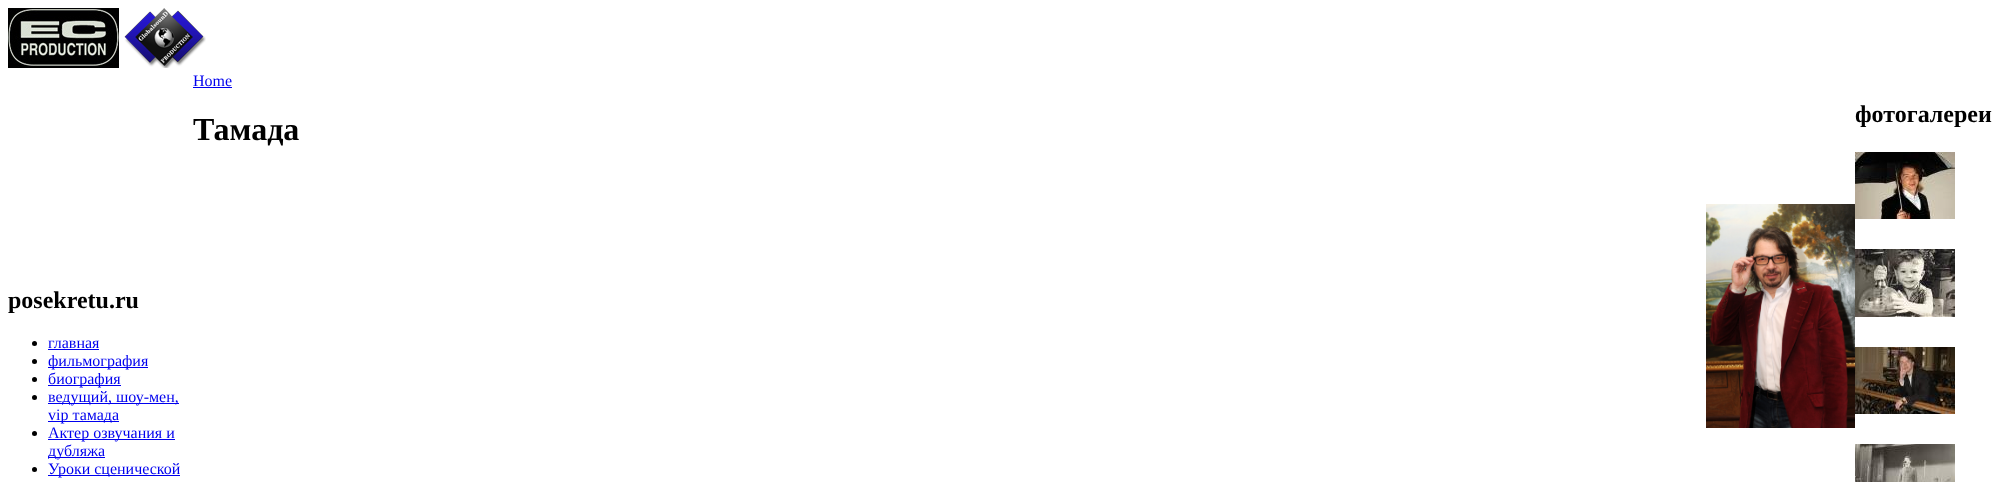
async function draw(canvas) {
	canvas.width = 2000;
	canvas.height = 482;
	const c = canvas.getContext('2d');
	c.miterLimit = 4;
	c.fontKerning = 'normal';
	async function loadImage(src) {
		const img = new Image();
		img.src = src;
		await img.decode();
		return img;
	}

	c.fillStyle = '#fff';
	c.fillRect(0, 0, 2000, 482);
	c.drawImage(await loadImage('img1.png'), 8, 8, 198, 60);
	c.font = '16px Liberation Serif';
	c.fillStyle = '#00e';
	c.fillText('Home', 193, 86);
	c.fillRect(193, 87, 39, 1);
	c.font = 'bold 32px Liberation Serif';
	c.fillStyle = '#000';
	c.fillText('Тамада', 193, 140);
	c.drawImage(await loadImage('img2.png'), 1706, 204, 149, 224);
	c.font = 'bold 24px Liberation Serif';
	c.fillText('фотогалереи', 1855, 122);
	c.drawImage(await loadImage('img3.png'), 1855, 152, 100, 67);
	c.drawImage(await loadImage('img4.png'), 1855, 249, 100, 68);
	c.drawImage(await loadImage('img5.png'), 1855, 347, 100, 67);
	c.drawImage(await loadImage('img6.png'), 1855, 444, 100, 38);
	c.fillText('posekretu.ru', 8, 308);
	c.beginPath();
	c.arc(34.5, 343.5, 2.5, 0, 2 * Math.PI);
	c.fill();
	c.font = '16px Liberation Serif';
	c.fillStyle = '#00e';
	c.fillText('главная', 48, 348);
	c.fillRect(48, 349, 51, 1);
	c.fillStyle = '#000';
	c.beginPath();
	c.arc(34.5, 361.5, 2.5, 0, 2 * Math.PI);
	c.fill();
	c.fillStyle = '#00e';
	c.fillRect(48, 367, 100, 1);
	c.fillText('фильмография', 48, 366);
	c.fillStyle = '#000';
	c.beginPath();
	c.arc(34.5, 379.5, 2.5, 0, 2 * Math.PI);
	c.fill();
	c.fillStyle = '#00e';
	c.fillRect(48, 385, 73, 1);
	c.fillText('биография', 48, 384);
	c.fillStyle = '#000';
	c.beginPath();
	c.arc(34.5, 397.5, 2.5, 0, 2 * Math.PI);
	c.fill();
	c.fillStyle = '#00e';
	c.fillRect(48, 403, 131, 1);
	c.fillText('ведущий, шоу-мен,', 48, 402);
	c.fillRect(48, 421, 71, 1);
	c.fillText('vip тамада', 48, 420);
	c.fillStyle = '#000';
	c.beginPath();
	c.arc(34.5, 433.5, 2.5, 0, 2 * Math.PI);
	c.fill();
	c.fillStyle = '#00e';
	c.fillRect(48, 439, 127, 1);
	c.fillText('Актер озвучания и', 48, 438);
	c.fillRect(48, 457, 57, 1);
	c.fillText('дубляжа', 48, 456);
	c.fillStyle = '#000';
	c.beginPath();
	c.arc(34.5, 469.5, 2.5, 0, 2 * Math.PI);
	c.fill();
	c.fillStyle = '#00e';
	c.fillRect(48, 475, 132, 1);
	c.fillText('Уроки сценической', 48, 474);
}

draw(document.querySelector('canvas'));
